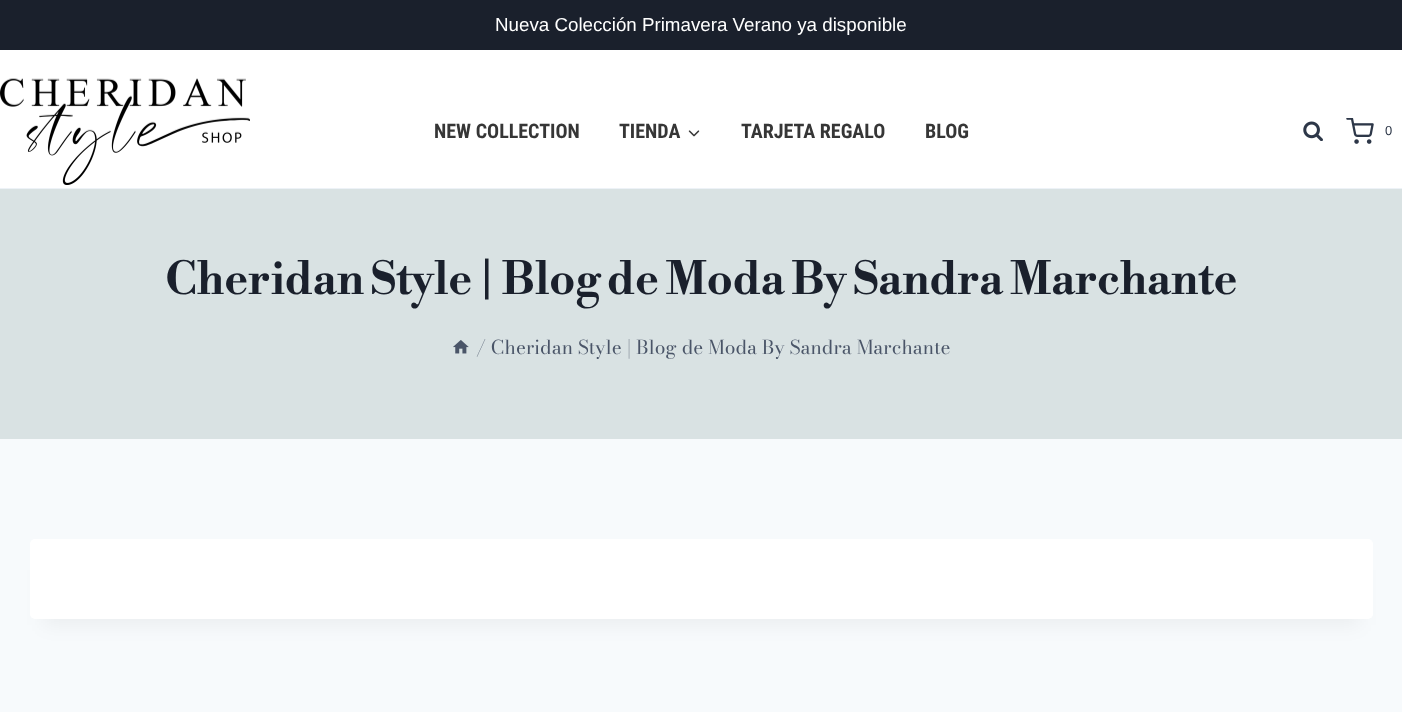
async function draw(canvas) {
	canvas.width = 1402;
	canvas.height = 712;
	const c = canvas.getContext('2d');
	c.miterLimit = 4;
	c.fontKerning = 'normal';
	async function loadImage(src) {
		const img = new Image();
		img.src = src;
		await img.decode();
		return img;
	}

	c.fillStyle = '#f7fafc';
	c.fillRect(0, 0, 1402, 712);
	c.fillStyle = '#1a202c';
	c.fillRect(0, 0, 1402, 50);
	c.font = '18.75px Liberation Sans';
	c.fillStyle = '#fff';
	c.fillText('Nueva Colección Primavera Verano ya disponible', 495, 31);
	c.fillRect(0, 50, 1402, 138);
	c.fillStyle = '#edf2f7';
	c.fillRect(0, 188, 1402, 1);
	c.drawImage(await loadImage('img1.png'), 0, 78, 250, 107);
	c.font = 'bold 20px Roboto Condensed';
	c.fillStyle = '#363636';
	c.fillText('NEW COLLECTION', 434, 138);
	c.fillText('TIENDA', 619, 138);
	c.drawImage(await loadImage('img2.png'), 688, 130, 12, 7);
	c.fillText('TARJETA REGALO', 741, 138);
	c.fillText('BLOG', 925, 138);
	c.drawImage(await loadImage('img3.png'), 1303, 121, 20, 20);
	c.drawImage(await loadImage('img4.png'), 1346, 118, 28, 26);
	c.font = '13px Liberation Sans';
	c.fillStyle = '#2d3748';
	c.fillText('0', 1385, 135);
	c.fillStyle = '#d9e2e3';
	c.fillRect(0, 189, 1402, 250);
	c.letterSpacing = '-0.45px';
	c.font = 'bold 45px Libre Bodoni';
	c.fillStyle = '#1a202c';
	c.fillText('Cheridan Style | Blog de Moda By Sandra Marchante', 165, 294);
	c.drawImage(await loadImage('img5.png'), 453, 340, 16, 14);
	c.letterSpacing = '0px';
	c.font = '19.1px Bodoni Moda';
	c.fillStyle = '#4a5568';
	c.fillText('/ Cheridan Style | Blog de Moda By Sandra Marchante', 476, 354);
	c.fillStyle = '#0000000d';
	c.filter = 'blur(9.5px)';
	c.beginPath();
	c.rect(43, 570, 1317, 55);
	c.fill();
	c.filter = 'none';
	c.fillStyle = '#fff';
	c.beginPath();
	c.roundRect(30, 539, 1343, 80, 5);
	c.fill();
}

draw(document.querySelector('canvas'));
